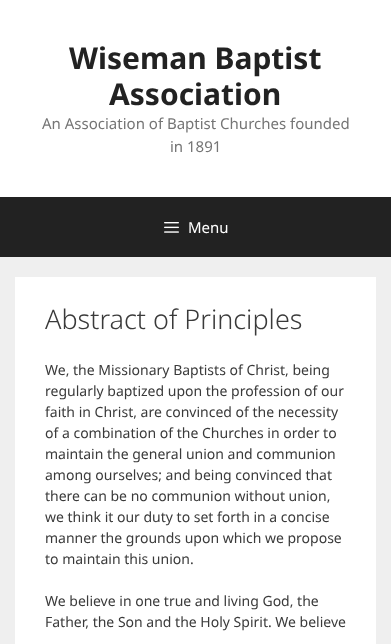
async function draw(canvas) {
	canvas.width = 391;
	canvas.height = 644;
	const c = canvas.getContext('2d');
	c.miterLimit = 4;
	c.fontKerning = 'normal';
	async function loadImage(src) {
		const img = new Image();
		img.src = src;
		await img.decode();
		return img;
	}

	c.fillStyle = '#efefef';
	c.fillRect(0, 0, 391, 644);
	c.fillStyle = '#fff';
	c.fillRect(0, 0, 391, 197);
	c.font = 'bold 30px Noto Sans';
	c.fillStyle = '#222';
	c.fillText('Wiseman Baptist', 69, 69);
	c.fillText('Association', 109, 105);
	c.font = '15px Noto Sans';
	c.fillStyle = '#757575';
	c.fillText('An Association of Baptist Churches founded', 42, 129);
	c.fillText('in 1891', 170, 152);
	c.fillStyle = '#222';
	c.fillRect(0, 197, 391, 60);
	c.drawImage(await loadImage('img1.png'), 164, 222, 15, 11);
	c.fillStyle = '#fff';
	c.fillText('Menu', 188, 233);
	c.fillRect(15, 277, 361, 367);
	c.font = '300 27px Noto Sans';
	c.fillStyle = '#3a3a3a';
	c.fillText('Abstract of Principles', 45, 329);
	c.font = '14px Noto Sans';
	for (const [text, x, y] of [
		['We, the Missionary Baptists of Christ, being', 45, 375],
		['regularly baptized upon the profession of our', 45, 396],
		['faith in Christ, are convinced of the necessity', 45, 417],
		['of a combination of the Churches in order to', 45, 438],
		['maintain the general union and communion', 45, 459],
		['among ourselves; and being convinced that', 45, 480],
		['there can be no communion without union,', 45, 501],
		['we think it our duty to set forth in a concise', 45, 522],
		['manner the grounds upon which we propose', 45, 543],
		['to maintain this union.', 45, 564],
		['We believe in one true and living God, the', 45, 606],
		['Father, the Son and the Holy Spirit. We believe', 45, 627],
	]) {
		c.fillText(text, x, y);
	}
}

draw(document.querySelector('canvas'));
